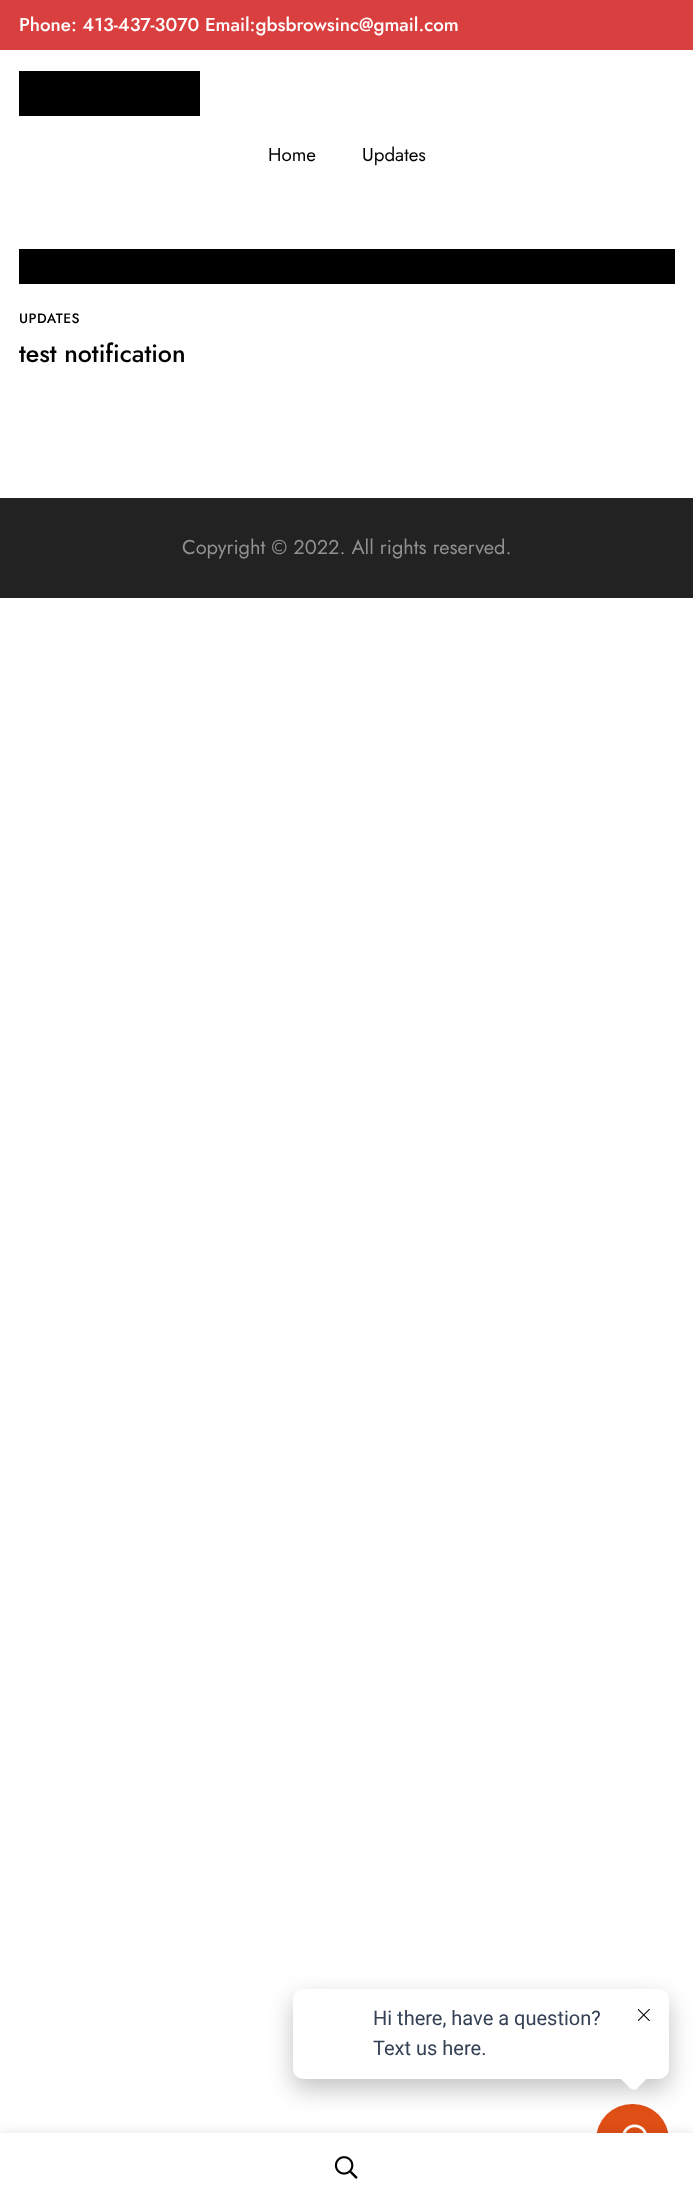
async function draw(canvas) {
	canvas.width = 693;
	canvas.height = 2201;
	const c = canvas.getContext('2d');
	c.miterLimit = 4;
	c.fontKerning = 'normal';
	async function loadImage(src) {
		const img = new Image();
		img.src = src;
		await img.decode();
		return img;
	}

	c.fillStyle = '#fff';
	c.fillRect(0, 0, 693, 2201);
	c.fillStyle = '#da3f3f';
	c.fillRect(0, 0, 693, 50);
	c.font = '500 18.75px Jost';
	c.fillStyle = '#fff';
	c.fillText('Phone: 413-437-3070 Email:gbsbrowsinc@gmail.com', 19, 31);
	c.fillStyle = '#000';
	c.fillRect(19, 71, 181, 45);
	c.font = '18.75px Jost';
	c.fillText('Home', 268, 161);
	c.fillText('Updates', 362, 161);
	c.fillRect(19, 249, 656, 35);
	c.letterSpacing = '0.5px';
	c.font = '500 13.75px Jost';
	c.fillText('UPDATES', 19, 323);
	c.letterSpacing = '0px';
	c.font = '500 25px Jost';
	c.fillText('test notification', 19, 362);
	c.fillStyle = '#222';
	c.fillRect(0, 498, 693, 100);
	c.font = '20px Jost';
	c.fillStyle = '#919191';
	c.fillText('Copyright © 2022. All rights reserved.', 182, 554);
	c.fillStyle = '#e04f16';
	c.beginPath();
	c.roundRect(596, 2104, 73, 72, 36);
	c.fill();
	c.drawImage(await loadImage('img3.png'), 622, 2124, 25, 9);
	c.fillStyle = '#0000001c';
	c.filter = 'blur(6px)';
	c.beginPath();
	c.rect(0, 2133, 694, 68);
	c.fill();
	c.filter = 'none';
	c.fillStyle = '#fff';
	c.fillRect(0, 2133, 693, 68);
	c.drawImage(await loadImage('img1.png'), 334, 2156, 24, 23);
	c.fillStyle = '#0000003d';
	c.filter = 'blur(12.5px)';
	c.beginPath();
	c.roundRect(293, 1999, 376, 90, 10);
	c.fill();
	c.filter = 'none';
	c.fillStyle = '#fff';
	c.beginPath();
	c.roundRect(293, 1989, 376, 90, 10);
	c.fill();
	c.font = '20px Roboto';
	c.fillStyle = '#344054';
	c.fillText('Hi there, have a question?', 373, 2025);
	c.fillText('Text us here.', 373, 2055);
	c.fillStyle = '#fff';
	c.beginPath();
	c.moveTo(637.5, 2059.5);
	c.lineTo(648, 2070);
	c.bezierCurveTo(650, 2072, 650, 2075.5, 648, 2077.5);
	c.lineTo(637.5, 2088);
	c.bezierCurveTo(635.5, 2090, 632, 2090, 630, 2088);
	c.lineTo(619.5, 2077.5);
	c.bezierCurveTo(617.5, 2075.5, 617.5, 2072, 619.5, 2070);
	c.lineTo(630, 2059.5);
	c.bezierCurveTo(632, 2057.5, 635.5, 2057.5, 637.5, 2059.5);
	c.closePath();
	c.fill();
	c.drawImage(await loadImage('img2.png'), 638, 2009, 12, 12);
}

draw(document.querySelector('canvas'));
